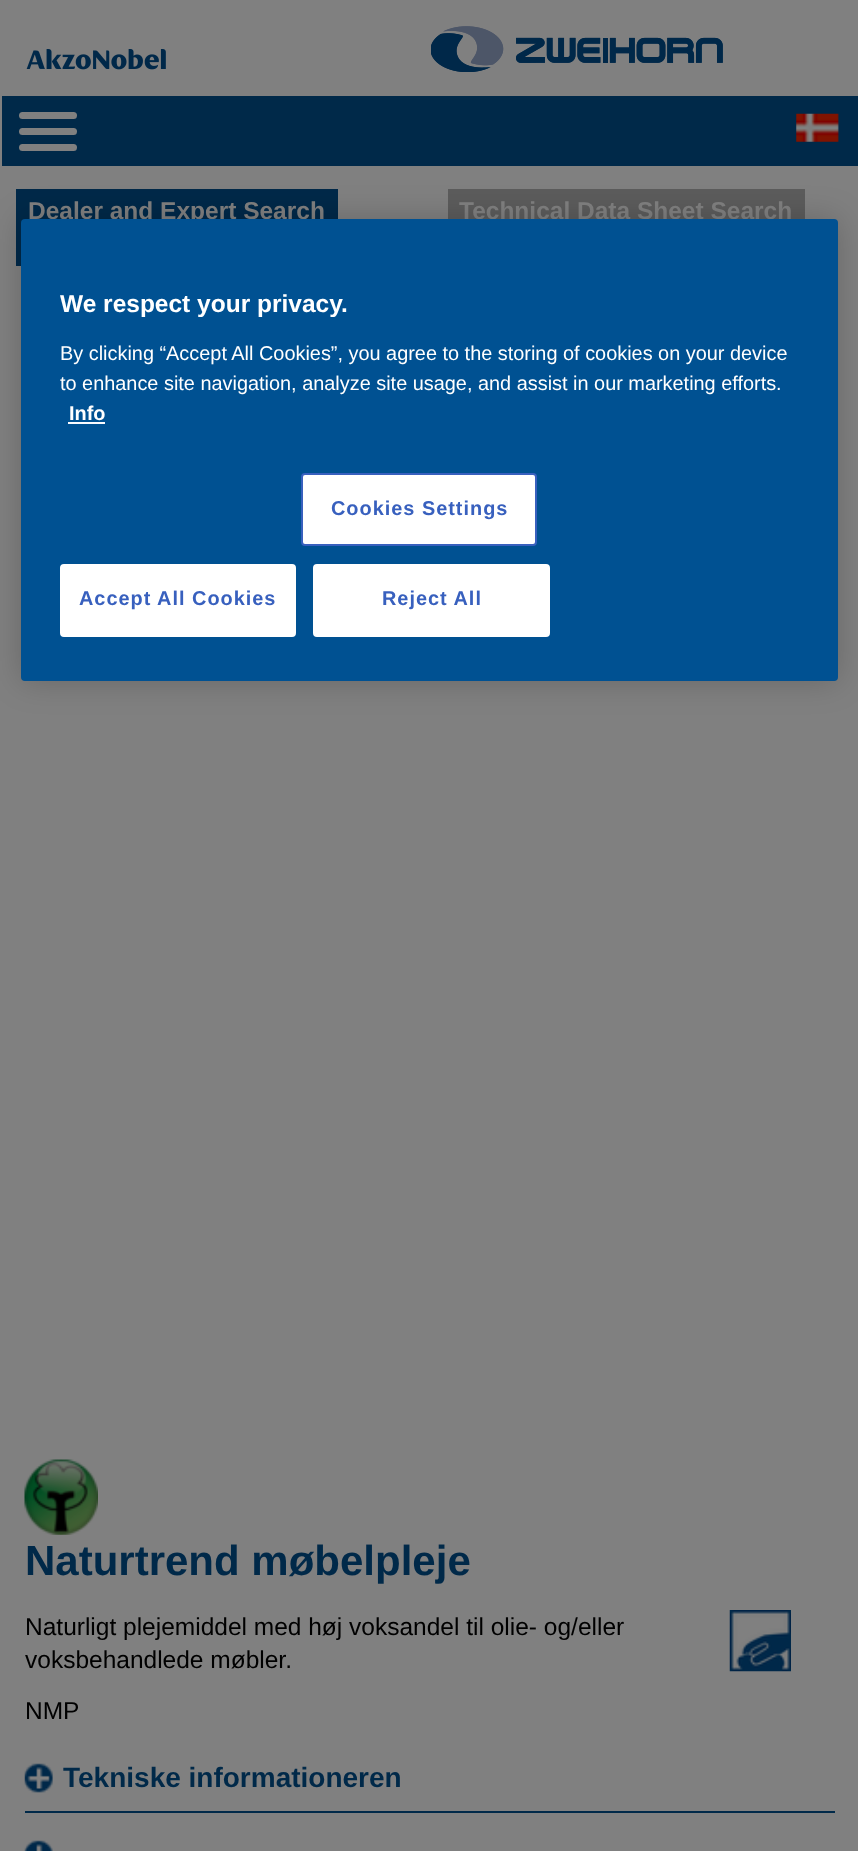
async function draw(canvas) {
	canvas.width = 858;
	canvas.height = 1851;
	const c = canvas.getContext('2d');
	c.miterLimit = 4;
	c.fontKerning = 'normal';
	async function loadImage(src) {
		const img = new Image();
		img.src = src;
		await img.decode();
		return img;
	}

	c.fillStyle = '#808080';
	c.fillRect(0, 0, 858, 1851);
	c.drawImage(await loadImage('img1.png'), 26, 49, 140, 21);
	c.drawImage(await loadImage('img2.png'), 431, 26, 292, 46);
	c.drawImage(await loadImage('img3.png'), 431, 26, 292, 46);
	c.fillStyle = '#002949';
	c.fillRect(2, 96, 856, 70);
	c.fillStyle = '#808080';
	c.beginPath();
	c.roundRect(19, 112, 58, 7, 3.5);
	c.fill();
	c.beginPath();
	c.roundRect(19, 128, 58, 7, 3.5);
	c.fill();
	c.beginPath();
	c.roundRect(19, 144, 58, 7, 3.5);
	c.fill();
	c.drawImage(await loadImage('img4.png'), 796, 113, 43, 29);
	c.fillStyle = '#002949';
	c.fillRect(16, 189, 322, 77);
	c.font = 'bold 24.5px Liberation Sans';
	c.fillStyle = '#808080';
	c.fillText('Dealer and Expert Search', 28, 219);
	c.fillStyle = '#5c5c5c';
	c.fillRect(448, 189, 357, 30);
	c.fillStyle = '#808080';
	c.fillText('Technical Data Sheet Search', 459, 219);
	c.fillStyle = '#00000033';
	c.filter = 'blur(16px)';
	c.beginPath();
	c.roundRect(21, 219, 817, 462, 4);
	c.fill();
	c.filter = 'none';
	c.fillStyle = '#005192';
	c.beginPath();
	c.roundRect(21, 219, 817, 462, 4);
	c.fill();
	c.fillStyle = '#fff';
	c.fillText('We respect your privacy.', 60, 312);
	c.font = '19.9px Liberation Sans';
	c.fillText('By clicking “Accept All Cookies”, you agree to the storing of cookies on your device', 60, 360);
	c.fillText('to enhance site navigation, analyze site usage, and assist in our marketing efforts.', 60, 390);
	c.font = 'bold 19.9px Liberation Sans';
	c.fillText('Info', 69, 420);
	c.fillStyle = '#fafbff';
	c.fillRect(68, 422, 37, 2);
	c.fillStyle = '#fff';
	c.beginPath();
	c.roundRect(302, 474, 234, 71, 3);
	c.fill();
	c.strokeStyle = '#3860be';
	c.lineWidth = 2;
	c.stroke();
	c.letterSpacing = '1px';
	c.fillStyle = '#3860be';
	c.fillText('Cookies Settings', 331, 515);
	c.fillStyle = '#fff';
	c.beginPath();
	c.roundRect(61, 565, 234, 71, 3);
	c.fill();
	c.strokeStyle = '#fff';
	c.stroke();
	c.fillStyle = '#3860be';
	c.fillText('Accept All Cookies', 79, 605);
	c.fillStyle = '#fff';
	c.beginPath();
	c.roundRect(314, 565, 235, 71, 3);
	c.fill();
	c.stroke();
	c.fillStyle = '#3860be';
	c.fillText('Reject All', 382, 605);
	c.drawImage(await loadImage('img5.png'), 24, 1459, 74, 76);
	c.letterSpacing = '0px';
	c.font = 'bold 42px Liberation Sans';
	c.fillStyle = '#002949';
	c.fillText('Naturtrend møbelpleje', 25, 1575);
	c.font = '24.5px Liberation Sans';
	c.fillStyle = '#000';
	for (const [text, x, y] of [
		['Naturligt plejemiddel med høj voksandel til olie- og/eller', 25, 1635],
		['voksbehandlede møbler.', 25, 1668],
		['NMP', 25, 1719],
	]) {
		c.fillText(text, x, y);
	}
	c.drawImage(await loadImage('img6.png'), 729, 1610, 62, 62);
	c.fillStyle = '#002949';
	c.fillRect(25, 1811, 810, 2);
	c.drawImage(await loadImage('img7.png'), 24, 1763, 29, 30);
	c.font = 'bold 28px Liberation Sans';
	c.fillText('Tekniske informationeren', 63, 1787);
	c.drawImage(await loadImage('img8.png'), 24, 1840, 29, 11);
}

draw(document.querySelector('canvas'));
